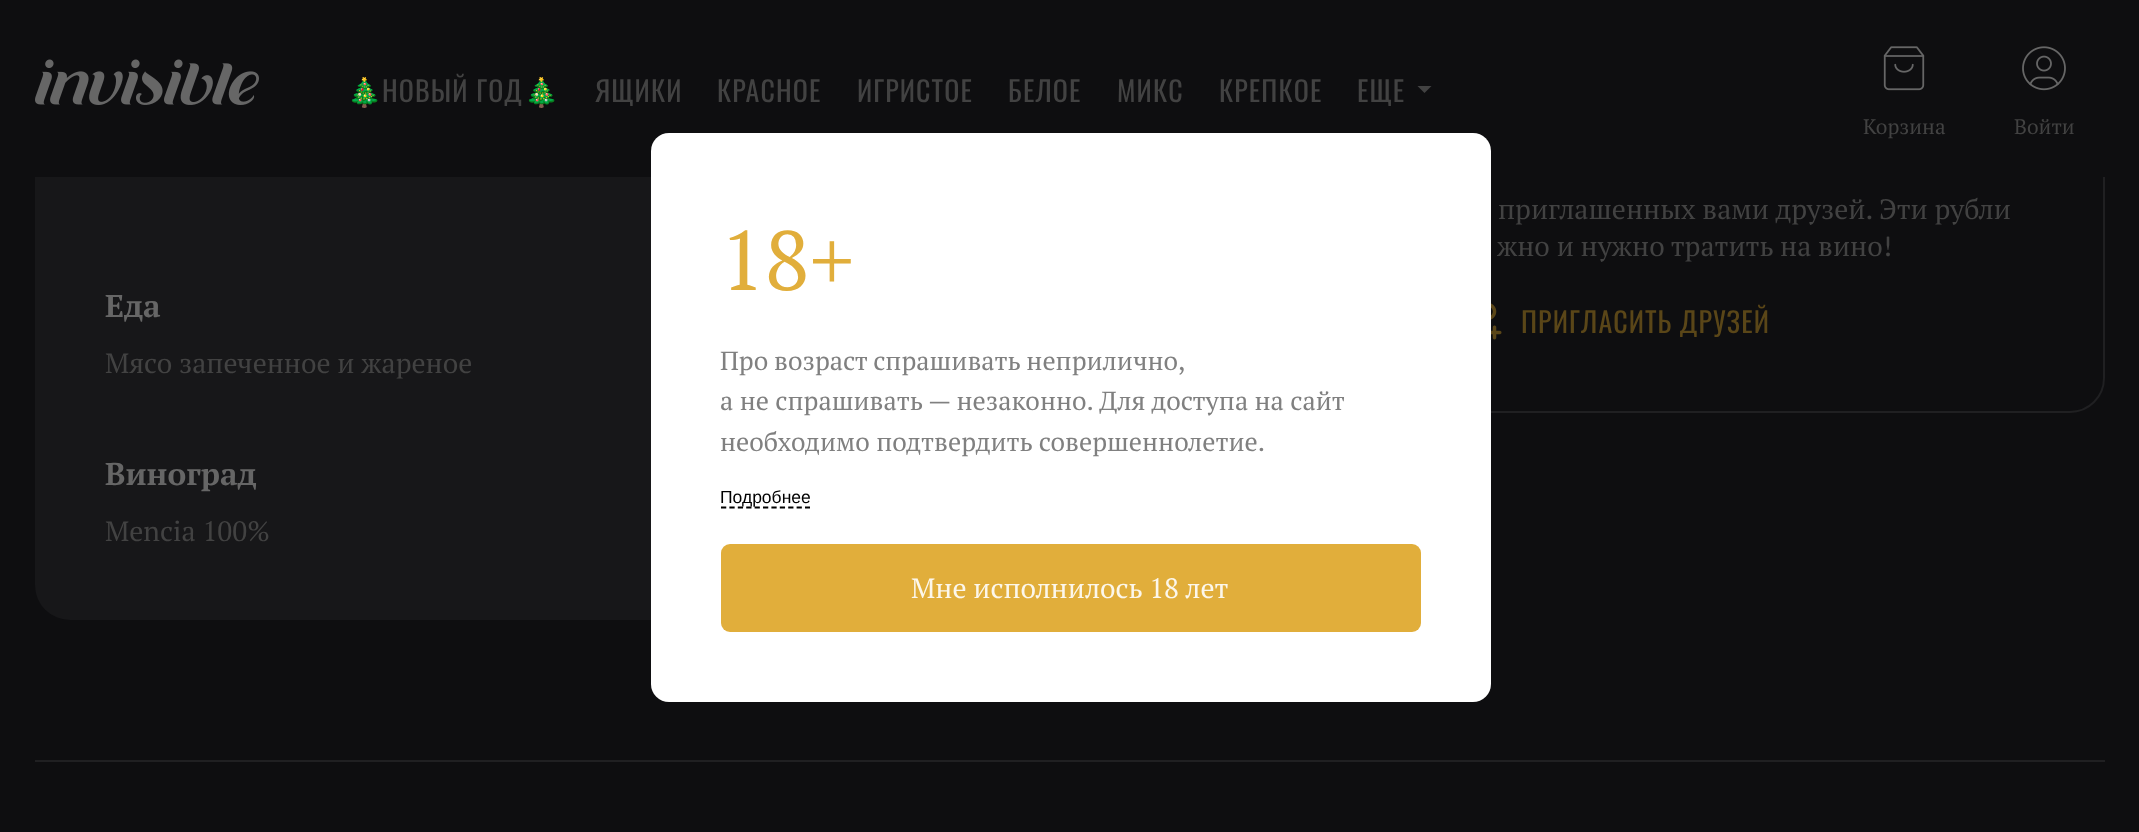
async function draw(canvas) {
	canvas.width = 2139;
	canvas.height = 832;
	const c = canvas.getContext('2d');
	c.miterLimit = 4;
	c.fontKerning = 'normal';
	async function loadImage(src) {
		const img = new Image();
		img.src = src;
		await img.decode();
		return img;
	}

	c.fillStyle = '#0e0e10';
	c.fillRect(0, 0, 2139, 832);
	c.beginPath();
	c.roundRect(1391, -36, 713, 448, 34);
	c.strokeStyle = '#202022';
	c.lineWidth = 2;
	c.stroke();
	c.fillStyle = '#171719';
	c.beginPath();
	c.roundRect(35, -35, 1320, 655, 35);
	c.fill();
	c.fillStyle = '#0e0e10';
	c.fillRect(35, 0, 2070, 177);
	c.drawImage(await loadImage('img1.png'), 35, 59, 224, 46);
	c.letterSpacing = '1.1px';
	c.font = '28px Noto Color Emoji';
	c.fillStyle = '#424242';
	c.fillText('🎄', 347, 102);
	c.font = '28px Oswald';
	c.fillText('НОВЫЙ ГОД', 382, 102);
	c.font = '28px Noto Color Emoji';
	c.fillText('🎄', 524, 102);
	c.font = '28px Oswald';
	for (const [text, x, y] of [
		['ЯЩИКИ', 595, 102],
		['КРАСНОЕ', 717, 102],
		['ИГРИСТОЕ', 857, 102],
		['БЕЛОЕ', 1008, 102],
		['МИКС', 1117, 102],
		['КРЕПКОЕ', 1219, 102],
		['ЕЩЕ', 1357, 102],
	]) {
		c.fillText(text, x, y);
	}
	c.beginPath();
	c.moveTo(1424.5, 93);
	c.lineTo(1417.5, 86);
	c.lineTo(1431.5, 86);
	c.closePath();
	c.fill();
	c.drawImage(await loadImage('img2.png'), 1883, 46, 42, 45);
	c.letterSpacing = '0px';
	c.font = '21px PT Serif';
	c.fillText('Корзина', 1863, 134);
	c.drawImage(await loadImage('img3.png'), 2022, 46, 44, 45);
	c.fillText('Войти', 2014, 134);
	c.font = '28px PT Serif';
	c.fillText('приглашенных вами друзей. Эти рубли', 1498, 219);
	c.fillText('жно и нужно тратить на вино!', 1497, 256);
	c.drawImage(await loadImage('img4.png'), 1491, 303, 11, 37);
	c.letterSpacing = '1.1px';
	c.font = '28px Oswald';
	c.fillStyle = '#5a4618';
	c.fillText('ПРИГЛАСИТЬ ДРУЗЕЙ', 1521, 333);
	c.letterSpacing = '0px';
	c.font = 'bold 31.5px PT Serif';
	c.fillStyle = '#666';
	c.fillText('Еда', 105, 317);
	c.font = '28px PT Serif';
	c.fillStyle = '#424242';
	c.fillText('Мясо запеченное и жареное', 105, 373);
	c.font = 'bold 31.5px PT Serif';
	c.fillStyle = '#666';
	c.fillText('Виноград', 105, 485);
	c.font = '28px PT Serif';
	c.fillStyle = '#424242';
	c.fillText('Mencia 100%', 105, 541);
	c.fillStyle = '#202022';
	c.fillRect(35, 760, 2070, 2);
	c.fillStyle = '#fff';
	c.beginPath();
	c.roundRect(651, 133, 840, 569, 18);
	c.fill();
	c.font = '84px PT Serif';
	c.fillStyle = '#e1ae3b';
	c.fillText('18+', 720, 290);
	c.wordSpacing = '-0.5px';
	c.font = '26.25px PT Serif';
	c.fillStyle = '#808080';
	c.fillText('Про возраст спрашивать неприлично,', 720, 370);
	c.wordSpacing = '0px';
	c.fillText('а не спрашивать — незаконно. Для доступа на сайт', 720, 410);
	c.fillText('необходимо подтвердить совершеннолетие.', 720, 451);
	c.beginPath();
	c.moveTo(721, 507.5);
	c.lineTo(810, 507.5);
	c.strokeStyle = '#000';
	c.lineWidth = 1.8;
	c.setLineDash([5.25, 3.15]);
	c.stroke();
	c.font = '17.5px Liberation Sans';
	c.fillStyle = '#000';
	c.fillText('Подробнее', 720, 503);
	c.fillStyle = '#e1ae3b';
	c.beginPath();
	c.roundRect(721, 544, 700, 88, 9);
	c.fill();
	c.font = '28px PT Serif';
	c.fillStyle = '#fcf7eb';
	c.fillText('Мне исполнилось 18 лет', 911, 598);
}

draw(document.querySelector('canvas'));
